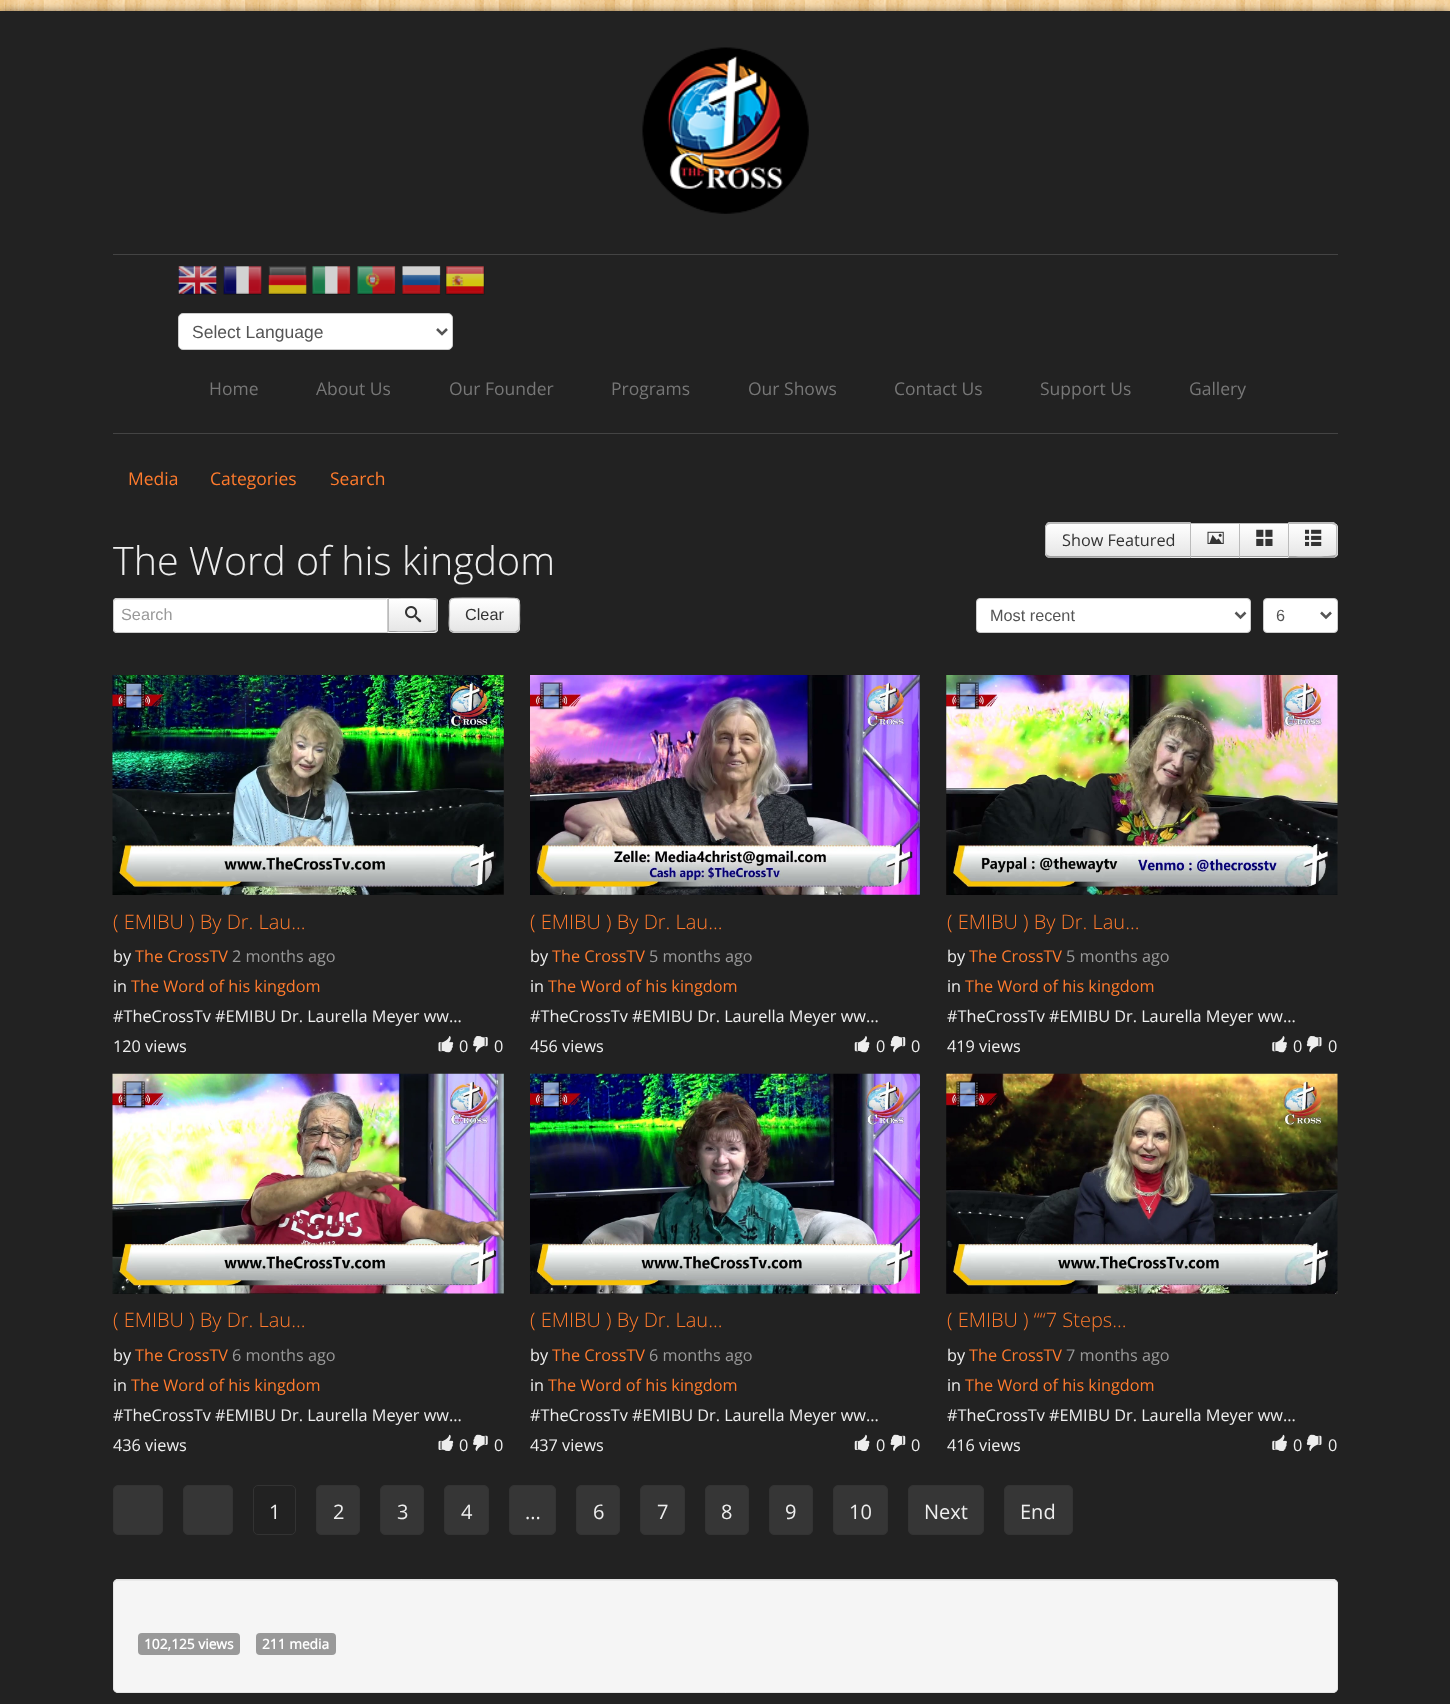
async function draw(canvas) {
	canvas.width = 1450;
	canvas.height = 1704;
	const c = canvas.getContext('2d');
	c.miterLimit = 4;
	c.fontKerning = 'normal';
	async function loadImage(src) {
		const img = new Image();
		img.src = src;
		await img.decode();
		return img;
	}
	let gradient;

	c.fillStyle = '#fff';
	c.fillRect(0, 0, 1450, 1704);
	c.drawImage(await loadImage('img1.png'), 0, 0, 1450, 11);
	c.fillStyle = '#00000078';
	c.filter = 'blur(4px)';
	c.beginPath();
	c.rect(0, 11, 1450, 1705);
	c.fill();
	c.filter = 'none';
	c.fillStyle = '#222';
	c.fillRect(0, 11, 1450, 1693);
	c.drawImage(await loadImage('img2.png'), 642, 47, 167, 167);
	c.fillStyle = '#444';
	c.fillRect(113, 254, 1225, 1);
	c.fillRect(113, 433, 1225, 1);
	c.drawImage(await loadImage('img3.png'), 178, 266, 39, 29);
	c.drawImage(await loadImage('img4.png'), 223, 266, 39, 29);
	c.drawImage(await loadImage('img5.png'), 268, 266, 39, 29);
	c.drawImage(await loadImage('img6.png'), 312, 266, 39, 29);
	c.drawImage(await loadImage('img7.png'), 357, 266, 39, 29);
	c.drawImage(await loadImage('img8.png'), 402, 266, 39, 29);
	c.drawImage(await loadImage('img9.png'), 445, 266, 40, 29);
	c.fillStyle = '#fff';
	c.beginPath();
	c.roundRect(178.5, 313.5, 274, 36, 4.5);
	c.fill();
	c.strokeStyle = '#ccc';
	c.stroke();
	c.beginPath();
	c.moveTo(437, 329);
	c.lineTo(442, 334);
	c.lineTo(447, 329);
	c.strokeStyle = '#555';
	c.lineWidth = 2.5;
	c.stroke();
	c.font = '17.5px Liberation Sans';
	c.fillStyle = '#555';
	c.fillText('Select Language', 192, 338);
	c.font = '17.5px Open Sans';
	c.fillStyle = '#777';
	for (const [text, x, y] of [
		['Home', 209, 395],
		['About Us', 316, 395],
		['Our Founder', 449, 395],
		['Programs', 611, 395],
		['Our Shows', 748, 395],
		['Contact Us', 894, 395],
		['Support Us', 1040, 395],
		['Gallery', 1189, 395],
	]) {
		c.fillText(text, x, y);
	}
	c.fillStyle = '#ff7b2d';
	for (const [text, x, y] of [
		['Media', 128, 485],
		['Categories', 210, 485],
		['Search', 330, 485],
	]) {
		c.fillText(text, x, y);
	}
	c.fillStyle = '#f5f5f5';
	c.fillRect(1191, 557, 48, 1);
	gradient = c.createLinearGradient(1215, 524, 1215, 556);
	gradient.addColorStop(0, '#fff');
	gradient.addColorStop(1, '#e6e6e6');
	c.fillStyle = gradient;
	c.fillRect(1191, 524, 48, 32);
	c.fillStyle = '#f5f5f5';
	c.beginPath();
	c.roundRect(1045, 523, 146, 35, [5, 0, 0, 5]);
	c.fill();
	c.save();
	c.beginPath();
	c.roundRect(1045, 523, 146, 35, [5, 0, 0, 5]);
	c.clip();
	gradient = c.createLinearGradient(1118, 524, 1118, 556);
	gradient.addColorStop(0, '#fff');
	gradient.addColorStop(1, '#e6e6e6');
	c.fillStyle = gradient;
	c.fillRect(1045, 524, 145, 32);
	c.restore();
	c.fillStyle = '#bbb';
	c.beginPath();
	c.moveTo(1050, 524);
	c.lineTo(1047, 525);
	c.lineTo(1046, 524);
	c.lineTo(1048, 522);
	c.lineTo(1191, 522);
	c.lineTo(1190, 524);
	c.closePath();
	c.fill();
	c.fillRect(1190, 523, 99, 1);
	c.fillStyle = '#a2a2a2';
	c.beginPath();
	c.moveTo(1048, 558);
	c.lineTo(1046, 556);
	c.lineTo(1047, 555);
	c.lineTo(1050, 556);
	c.lineTo(1190, 556);
	c.lineTo(1191, 557);
	c.closePath();
	c.fill();
	c.fillRect(1190, 556, 99, 1);
	c.fillStyle = '#bbb';
	c.fillRect(1190, 523, 1, 35);
	c.drawImage(await loadImage('img10.png'), 1207, 531, 17, 13);
	c.fillStyle = '#f5f5f5';
	c.beginPath();
	c.roundRect(1288, 523, 50, 35, [0, 5, 5, 0]);
	c.fill();
	c.save();
	c.beginPath();
	c.roundRect(1288, 523, 50, 35, [0, 5, 5, 0]);
	c.clip();
	gradient = c.createLinearGradient(1313, 524, 1313, 556);
	gradient.addColorStop(0, '#fff');
	gradient.addColorStop(1, '#e6e6e6');
	c.fillStyle = gradient;
	c.fillRect(1289, 524, 49, 32);
	c.restore();
	c.fillStyle = '#bbb';
	c.beginPath();
	c.moveTo(1289, 524);
	c.lineTo(1288, 522);
	c.lineTo(1334, 522);
	c.lineTo(1336, 524);
	c.lineTo(1335, 525);
	c.lineTo(1332, 524);
	c.closePath();
	c.fill();
	c.beginPath();
	c.moveTo(1337.5, 554);
	c.lineTo(1336, 556);
	c.lineTo(1335, 555);
	c.bezierCurveTo(1336, 554.5, 1336, 553.5, 1336, 552);
	c.lineTo(1336, 528);
	c.bezierCurveTo(1336, 526.5, 1336, 525.5, 1335, 525);
	c.lineTo(1336, 524);
	c.lineTo(1337.5, 526);
	c.closePath();
	c.fill();
	c.fillStyle = '#a2a2a2';
	c.beginPath();
	c.moveTo(1288, 558);
	c.lineTo(1289, 556);
	c.bezierCurveTo(1295, 556, 1333, 557, 1335, 555);
	c.lineTo(1336, 556);
	c.lineTo(1334, 558);
	c.closePath();
	c.fill();
	c.fillStyle = '#bbb';
	c.beginPath();
	c.moveTo(1289, 524);
	c.lineTo(1289, 556);
	c.lineTo(1288, 557);
	c.lineTo(1288, 523);
	c.closePath();
	c.fill();
	c.drawImage(await loadImage('img11.png'), 1305, 529, 17, 17);
	c.beginPath();
	c.moveTo(1045, 528);
	c.lineTo(1045, 552);
	c.bezierCurveTo(1045, 553.5, 1045.5, 555, 1046.5, 556);
	c.lineTo(1047.5, 555);
	c.bezierCurveTo(1046.5, 554.5, 1046, 553.5, 1046, 552);
	c.lineTo(1046, 528);
	c.bezierCurveTo(1046, 526.5, 1046.5, 525.5, 1047.5, 525);
	c.lineTo(1046.5, 524);
	c.bezierCurveTo(1045.5, 525, 1045, 526.5, 1045, 528);
	c.closePath();
	c.fill();
	c.font = '16.25px Open Sans';
	c.fillStyle = '#333';
	c.fillText('Show Featured', 1062, 546);
	c.fillStyle = '#f5f5f5';
	c.fillRect(1240, 557, 48, 1);
	gradient = c.createLinearGradient(1264, 524, 1264, 556);
	gradient.addColorStop(0, '#fff');
	gradient.addColorStop(1, '#e6e6e6');
	c.fillStyle = gradient;
	c.fillRect(1240, 524, 48, 32);
	c.fillStyle = '#bbb';
	c.fillRect(1239, 523, 1, 35);
	c.drawImage(await loadImage('img12.png'), 1256, 529, 17, 17);
	c.font = '300 39.4px Open Sans';
	c.fillStyle = '#eee';
	c.fillText('The Word of his kingdom', 113, 575);
	c.fillStyle = '#fff';
	c.beginPath();
	c.roundRect(113, 598, 275, 35, [4, 0, 0, 4]);
	c.fill();
	c.fillStyle = '#ececec';
	c.beginPath();
	c.moveTo(116, 600);
	c.lineTo(386, 600);
	c.lineTo(386, 599);
	c.lineTo(116, 599);
	c.bezierCurveTo(115, 599, 114, 600, 114, 602);
	c.bezierCurveTo(114, 601, 115, 600, 116, 600);
	c.closePath();
	c.fill();
	c.beginPath();
	c.roundRect(113.5, 598.5, 274, 34, [3.5, 0, 0, 3.5]);
	c.strokeStyle = '#ccc';
	c.lineWidth = 1;
	c.stroke();
	c.font = '16.25px Liberation Sans';
	c.fillStyle = '#999';
	c.fillText('Search', 121, 620);
	c.fillStyle = '#f5f5f5';
	c.beginPath();
	c.roundRect(388, 598, 50, 35, [0, 4, 4, 0]);
	c.fill();
	c.save();
	c.beginPath();
	c.roundRect(388, 598, 50, 35, [0, 4, 4, 0]);
	c.clip();
	gradient = c.createLinearGradient(413, 599, 413, 631);
	gradient.addColorStop(0, '#fff');
	gradient.addColorStop(1, '#e6e6e6');
	c.fillStyle = gradient;
	c.fillRect(389, 599, 49, 32);
	c.restore();
	c.fillStyle = '#bbb';
	c.beginPath();
	c.moveTo(388, 598);
	c.lineTo(389, 599);
	c.bezierCurveTo(394, 599, 434, 598, 435, 600);
	c.lineTo(436, 599);
	c.lineTo(434, 598);
	c.closePath();
	c.fill();
	c.beginPath();
	c.moveTo(437.5, 630.5);
	c.lineTo(436.5, 631.5);
	c.lineTo(435.5, 630.5);
	c.lineTo(436, 629);
	c.lineTo(436, 601);
	c.lineTo(435.5, 599.5);
	c.lineTo(436.5, 598.5);
	c.lineTo(437.5, 599.5);
	c.closePath();
	c.fill();
	c.fillStyle = '#a2a2a2';
	c.beginPath();
	c.moveTo(436, 631);
	c.lineTo(434, 632);
	c.lineTo(388, 632);
	c.lineTo(389, 631);
	c.bezierCurveTo(394, 631, 434, 632, 435, 630);
	c.closePath();
	c.fill();
	c.fillStyle = '#bbb';
	c.beginPath();
	c.moveTo(389, 599);
	c.lineTo(388, 598);
	c.lineTo(388, 632);
	c.lineTo(389, 631);
	c.closePath();
	c.fill();
	c.drawImage(await loadImage('img13.png'), 405, 606, 17, 17);
	c.fillStyle = '#f5f5f5';
	c.beginPath();
	c.roundRect(449, 598, 71, 35, 5);
	c.fill();
	c.save();
	c.beginPath();
	c.roundRect(449, 598, 71, 35, 5);
	c.clip();
	gradient = c.createLinearGradient(484, 599, 484, 631);
	gradient.addColorStop(0, '#fff');
	gradient.addColorStop(1, '#e6e6e6');
	c.fillStyle = gradient;
	c.fillRect(449, 599, 71, 32);
	c.restore();
	c.fillStyle = '#fff';
	c.beginPath();
	c.moveTo(454, 600);
	c.lineTo(515, 600);
	c.bezierCurveTo(517, 600, 519, 602, 519, 604);
	c.bezierCurveTo(519, 597, 510, 599, 505, 599);
	c.lineTo(464, 599);
	c.bezierCurveTo(459, 599, 450, 597, 450, 604);
	c.bezierCurveTo(450, 602, 452, 600, 454, 600);
	c.closePath();
	c.fill();
	c.beginPath();
	c.moveTo(518, 630.5);
	c.lineTo(515.5, 632);
	c.lineTo(453.5, 632);
	c.lineTo(450.5, 630.5);
	c.strokeStyle = '#a2a2a2';
	c.lineWidth = 1.2;
	c.stroke();
	c.beginPath();
	c.moveTo(450.5, 630.5);
	c.bezierCurveTo(448, 628, 449.5, 618, 449.5, 615);
	c.bezierCurveTo(449.5, 597.5, 446.5, 598, 464, 598);
	c.lineTo(505, 598);
	c.bezierCurveTo(522.5, 598, 519.5, 597.5, 519.5, 615);
	c.bezierCurveTo(519.5, 618, 520.5, 628, 518, 630.5);
	c.strokeStyle = '#bbb';
	c.stroke();
	c.fillStyle = '#333';
	c.fillText('Clear', 465, 620);
	c.fillStyle = '#fff';
	c.beginPath();
	c.roundRect(976.5, 598.5, 274, 34, 3.5);
	c.fill();
	c.strokeStyle = '#ccc';
	c.lineWidth = 1;
	c.stroke();
	c.beginPath();
	c.moveTo(1235.5, 612.5);
	c.lineTo(1240.5, 617.5);
	c.lineTo(1245.5, 612.5);
	c.strokeStyle = '#555';
	c.lineWidth = 2.5;
	c.stroke();
	c.fillStyle = '#555';
	c.fillText('Most recent', 990, 621);
	c.fillStyle = '#fff';
	c.beginPath();
	c.roundRect(1263.5, 598.5, 74, 34, 3.5);
	c.fill();
	c.strokeStyle = '#ccc';
	c.lineWidth = 1;
	c.stroke();
	c.beginPath();
	c.moveTo(1321, 612.5);
	c.lineTo(1326, 617.5);
	c.lineTo(1331, 612.5);
	c.strokeStyle = '#555';
	c.lineWidth = 2.5;
	c.stroke();
	c.fillStyle = '#555';
	c.fillText('6', 1276, 621);
	c.drawImage(await loadImage('img14.png'), 112, 675, 392, 220);
	c.drawImage(await loadImage('img15.png'), 121, 682, 26, 28);
	c.font = '300 20px Open Sans';
	c.fillStyle = '#ff7b2d';
	c.fillText('( EMIBU ) By Dr. Lau...', 113, 929);
	c.font = '16.25px Open Sans';
	c.fillStyle = '#eee';
	c.fillText('by', 113, 962);
	c.fillStyle = '#ff7b2d';
	c.fillText('The CrossTV', 135, 962);
	c.fillStyle = '#999';
	c.fillText('2 months ago', 232, 962);
	c.fillStyle = '#eee';
	c.fillText('in', 113, 992);
	c.fillStyle = '#ff7b2d';
	c.fillText('The Word of his kingdom', 131, 992);
	c.fillStyle = '#eee';
	c.fillText('#TheCrossTv #EMIBU Dr. Laurella Meyer ww...', 113, 1022);
	c.fillText('120 views', 113, 1052);
	c.drawImage(await loadImage('img16.png'), 438, 1036, 16, 17);
	c.fillText('0', 459, 1052);
	c.drawImage(await loadImage('img17.png'), 473, 1036, 15, 17);
	c.fillText('0', 494, 1052);
	c.drawImage(await loadImage('img18.png'), 530, 675, 390, 220);
	c.drawImage(await loadImage('img19.png'), 537, 682, 28, 28);
	c.font = '300 20px Open Sans';
	c.fillStyle = '#ff7b2d';
	c.fillText('( EMIBU ) By Dr. Lau...', 530, 929);
	c.font = '16.25px Open Sans';
	c.fillStyle = '#eee';
	c.fillText('by', 530, 962);
	c.fillStyle = '#ff7b2d';
	c.fillText('The CrossTV', 552, 962);
	c.fillStyle = '#999';
	c.fillText('5 months ago', 649, 962);
	c.fillStyle = '#eee';
	c.fillText('in', 530, 992);
	c.fillStyle = '#ff7b2d';
	c.fillText('The Word of his kingdom', 548, 992);
	c.fillStyle = '#eee';
	c.fillText('#TheCrossTv #EMIBU Dr. Laurella Meyer ww...', 530, 1022);
	c.fillText('456 views', 530, 1052);
	c.drawImage(await loadImage('img20.png'), 854, 1036, 16, 17);
	c.fillText('0', 876, 1052);
	c.drawImage(await loadImage('img21.png'), 890, 1036, 16, 17);
	c.fillText('0', 911, 1052);
	c.drawImage(await loadImage('img22.png'), 946, 675, 392, 220);
	c.drawImage(await loadImage('img23.png'), 954, 682, 27, 28);
	c.font = '300 20px Open Sans';
	c.fillStyle = '#ff7b2d';
	c.fillText('( EMIBU ) By Dr. Lau...', 947, 929);
	c.font = '16.25px Open Sans';
	c.fillStyle = '#eee';
	c.fillText('by', 947, 962);
	c.fillStyle = '#ff7b2d';
	c.fillText('The CrossTV', 969, 962);
	c.fillStyle = '#999';
	c.fillText('5 months ago', 1066, 962);
	c.fillStyle = '#eee';
	c.fillText('in', 947, 992);
	c.fillStyle = '#ff7b2d';
	c.fillText('The Word of his kingdom', 965, 992);
	c.fillStyle = '#eee';
	c.fillText('#TheCrossTv #EMIBU Dr. Laurella Meyer ww...', 947, 1022);
	c.fillText('419 views', 947, 1052);
	c.drawImage(await loadImage('img24.png'), 1272, 1036, 15, 17);
	c.fillText('0', 1293, 1052);
	c.drawImage(await loadImage('img25.png'), 1306, 1036, 16, 17);
	c.fillText('0', 1328, 1052);
	c.drawImage(await loadImage('img26.png'), 112, 1073, 392, 221);
	c.drawImage(await loadImage('img27.png'), 120, 1081, 28, 28);
	c.font = '300 20px Open Sans';
	c.fillStyle = '#ff7b2d';
	c.fillText('( EMIBU ) By Dr. Lau...', 113, 1327);
	c.font = '16.25px Open Sans';
	c.fillStyle = '#eee';
	c.fillText('by', 113, 1361);
	c.fillStyle = '#ff7b2d';
	c.fillText('The CrossTV', 135, 1361);
	c.fillStyle = '#999';
	c.fillText('6 months ago', 232, 1361);
	c.fillStyle = '#eee';
	c.fillText('in', 113, 1391);
	c.fillStyle = '#ff7b2d';
	c.fillText('The Word of his kingdom', 131, 1391);
	c.fillStyle = '#eee';
	c.fillText('#TheCrossTv #EMIBU Dr. Laurella Meyer ww...', 113, 1421);
	c.fillText('436 views', 113, 1451);
	c.drawImage(await loadImage('img28.png'), 438, 1434, 16, 17);
	c.fillText('0', 459, 1451);
	c.drawImage(await loadImage('img29.png'), 473, 1434, 15, 17);
	c.fillText('0', 494, 1451);
	c.drawImage(await loadImage('img30.png'), 530, 1073, 390, 221);
	c.drawImage(await loadImage('img31.png'), 538, 1081, 26, 28);
	c.font = '300 20px Open Sans';
	c.fillStyle = '#ff7b2d';
	c.fillText('( EMIBU ) By Dr. Lau...', 530, 1327);
	c.font = '16.25px Open Sans';
	c.fillStyle = '#eee';
	c.fillText('by', 530, 1361);
	c.fillStyle = '#ff7b2d';
	c.fillText('The CrossTV', 552, 1361);
	c.fillStyle = '#999';
	c.fillText('6 months ago', 649, 1361);
	c.fillStyle = '#eee';
	c.fillText('in', 530, 1391);
	c.fillStyle = '#ff7b2d';
	c.fillText('The Word of his kingdom', 548, 1391);
	c.fillStyle = '#eee';
	c.fillText('#TheCrossTv #EMIBU Dr. Laurella Meyer ww...', 530, 1421);
	c.fillText('437 views', 530, 1451);
	c.drawImage(await loadImage('img32.png'), 854, 1434, 16, 17);
	c.fillText('0', 876, 1451);
	c.drawImage(await loadImage('img33.png'), 890, 1434, 16, 17);
	c.fillText('0', 911, 1451);
	c.drawImage(await loadImage('img34.png'), 946, 1073, 392, 221);
	c.drawImage(await loadImage('img35.png'), 956, 1081, 23, 27);
	c.font = '300 20px Open Sans';
	c.fillStyle = '#ff7b2d';
	c.fillText('( EMIBU ) ““7 Steps...', 947, 1327);
	c.font = '16.25px Open Sans';
	c.fillStyle = '#eee';
	c.fillText('by', 947, 1361);
	c.fillStyle = '#ff7b2d';
	c.fillText('The CrossTV', 969, 1361);
	c.fillStyle = '#999';
	c.fillText('7 months ago', 1066, 1361);
	c.fillStyle = '#eee';
	c.fillText('in', 947, 1391);
	c.fillStyle = '#ff7b2d';
	c.fillText('The Word of his kingdom', 965, 1391);
	c.fillStyle = '#eee';
	c.fillText('#TheCrossTv #EMIBU Dr. Laurella Meyer ww...', 947, 1421);
	c.fillText('416 views', 947, 1451);
	c.drawImage(await loadImage('img36.png'), 1272, 1434, 15, 17);
	c.fillText('0', 1293, 1451);
	c.drawImage(await loadImage('img37.png'), 1306, 1434, 16, 17);
	c.fillText('0', 1328, 1451);
	c.fillStyle = '#363636';
	c.beginPath();
	c.roundRect(113.5, 1485.5, 49, 49, 4.5);
	c.fill();
	c.strokeStyle = '#333';
	c.lineWidth = 1;
	c.stroke();
	c.beginPath();
	c.roundRect(183.5, 1485.5, 49, 49, 4.5);
	c.fill();
	c.stroke();
	c.beginPath();
	c.roundRect(253.5, 1485.5, 42, 49, 4.5);
	c.stroke();
	c.font = '20px Open Sans';
	c.fillStyle = '#eee';
	c.fillText('1', 269, 1519);
	c.fillStyle = '#363636';
	c.beginPath();
	c.roundRect(316.5, 1485.5, 43, 49, 4.5);
	c.fill();
	c.stroke();
	c.fillStyle = '#eee';
	c.fillText('2', 333, 1519);
	c.fillStyle = '#363636';
	c.beginPath();
	c.roundRect(380.5, 1485.5, 43, 49, 4.5);
	c.fill();
	c.stroke();
	c.fillStyle = '#eee';
	c.fillText('3', 397, 1519);
	c.fillStyle = '#363636';
	c.beginPath();
	c.roundRect(444.5, 1485.5, 44, 49, 4.5);
	c.fill();
	c.stroke();
	c.fillStyle = '#eee';
	c.fillText('4', 461, 1519);
	c.fillStyle = '#363636';
	c.beginPath();
	c.roundRect(509.5, 1485.5, 46, 49, 4.5);
	c.fill();
	c.stroke();
	c.fillStyle = '#eee';
	c.fillText('...', 525, 1519);
	c.fillStyle = '#363636';
	c.beginPath();
	c.roundRect(576.5, 1485.5, 43, 49, 4.5);
	c.fill();
	c.stroke();
	c.fillStyle = '#eee';
	c.fillText('6', 593, 1519);
	c.fillStyle = '#363636';
	c.beginPath();
	c.roundRect(640.5, 1485.5, 44, 49, 4.5);
	c.fill();
	c.stroke();
	c.fillStyle = '#eee';
	c.fillText('7', 657, 1519);
	c.fillStyle = '#363636';
	c.beginPath();
	c.roundRect(705.5, 1485.5, 43, 49, 4.5);
	c.fill();
	c.stroke();
	c.fillStyle = '#eee';
	c.fillText('8', 721, 1519);
	c.fillStyle = '#363636';
	c.beginPath();
	c.roundRect(769.5, 1485.5, 43, 49, 4.5);
	c.fill();
	c.stroke();
	c.fillStyle = '#eee';
	c.fillText('9', 785, 1519);
	c.fillStyle = '#363636';
	c.beginPath();
	c.roundRect(833.5, 1485.5, 54, 49, 4.5);
	c.fill();
	c.stroke();
	c.fillStyle = '#eee';
	c.fillText('10', 849, 1519);
	c.fillStyle = '#363636';
	c.beginPath();
	c.roundRect(908.5, 1485.5, 75, 49, 4.5);
	c.fill();
	c.stroke();
	c.fillStyle = '#eee';
	c.fillText('Next', 924, 1519);
	c.fillStyle = '#363636';
	c.beginPath();
	c.roundRect(1004.5, 1485.5, 68, 49, 4.5);
	c.fill();
	c.stroke();
	c.fillStyle = '#eee';
	c.fillText('End', 1020, 1519);
	c.fillStyle = '#f5f5f5';
	c.beginPath();
	c.roundRect(113, 1579, 1225, 114, 5);
	c.fill();
	c.fillStyle = '#e9e9e9';
	c.beginPath();
	c.moveTo(118, 1581);
	c.lineTo(1332, 1581);
	c.bezierCurveTo(1335, 1581, 1336, 1583, 1336, 1585);
	c.bezierCurveTo(1336, 1582, 1335, 1580, 1332, 1580);
	c.lineTo(118, 1580);
	c.bezierCurveTo(115, 1580, 114, 1582, 114, 1585);
	c.bezierCurveTo(114, 1583, 115, 1581, 118, 1581);
	c.closePath();
	c.fill();
	c.beginPath();
	c.roundRect(113.5, 1579.5, 1224, 113, 4.5);
	c.strokeStyle = '#e3e3e3';
	c.stroke();
	c.fillStyle = '#999';
	c.beginPath();
	c.roundRect(138, 1633, 102, 22, 4);
	c.fill();
	c.font = 'bold 13.75px Open Sans';
	c.fillStyle = '#fff';
	c.fillText('102,125 views', 144, 1649);
	c.fillStyle = '#999';
	c.beginPath();
	c.roundRect(256, 1633, 80, 22, 4);
	c.fill();
	c.fillStyle = '#fff';
	c.fillText('211 media', 262, 1649);
}

draw(document.querySelector('canvas'));
